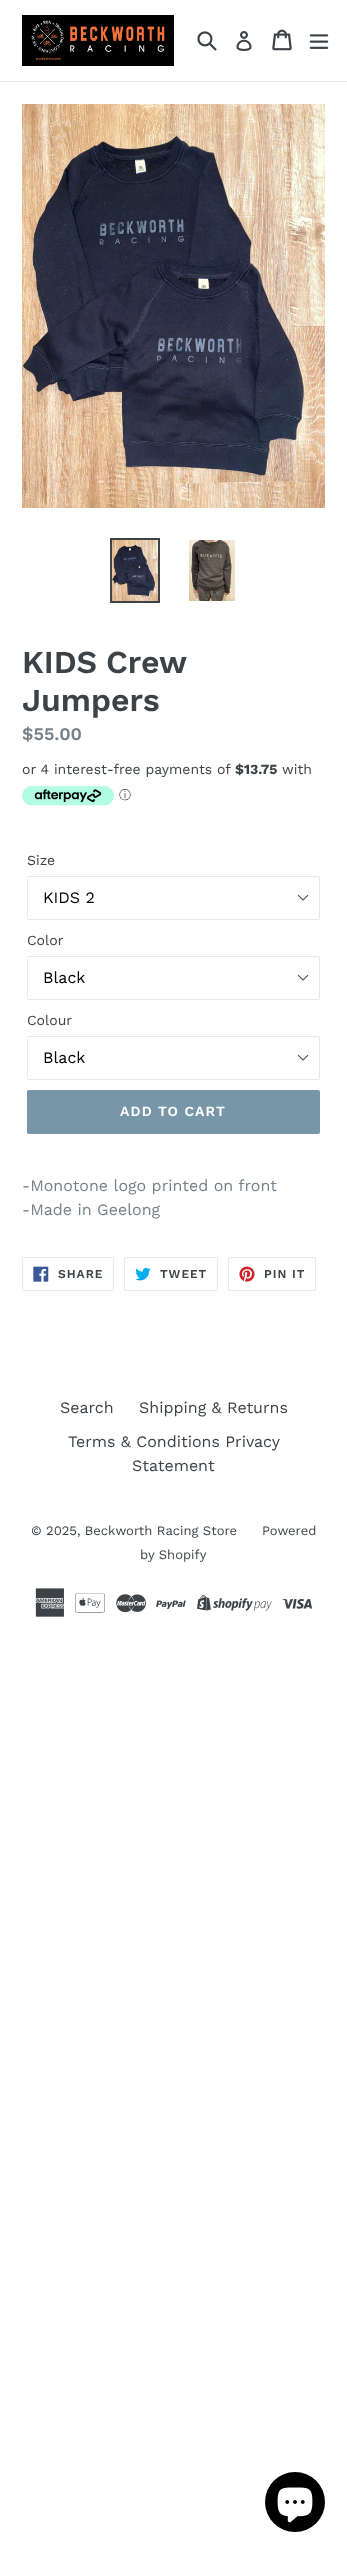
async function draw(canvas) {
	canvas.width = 347;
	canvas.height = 2553;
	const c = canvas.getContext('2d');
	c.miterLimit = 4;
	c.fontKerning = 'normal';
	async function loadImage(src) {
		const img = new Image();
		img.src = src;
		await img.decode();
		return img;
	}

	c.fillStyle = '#fff';
	c.fillRect(0, 0, 347, 2553);
	c.fillStyle = '#e8e9eb';
	c.fillRect(0, 81, 347, 1);
	c.drawImage(await loadImage('img1.png'), 22, 15, 152, 51);
	c.drawImage(await loadImage('img2.png'), 197, 31, 20, 20);
	c.drawImage(await loadImage('img3.png'), 236, 31, 16, 20);
	c.drawImage(await loadImage('img4.png'), 272, 29, 20, 22);
	c.drawImage(await loadImage('img5.png'), 309, 34, 20, 15);
	c.drawImage(await loadImage('img6.png'), 22, 104, 303, 404);
	c.strokeStyle = '#3d4246';
	c.lineWidth = 2;
	c.strokeRect(111, 539, 48, 63);
	c.drawImage(await loadImage('img7.png'), 112, 540, 46, 61);
	c.drawImage(await loadImage('img8.png'), 189, 540, 46, 61);
	c.wordSpacing = '-1px';
	c.font = '600 32px Work Sans';
	c.fillStyle = '#3d4246';
	c.fillText('KIDS Crew', 22, 673);
	c.wordSpacing = '0px';
	c.fillText('Jumpers', 22, 711);
	c.font = '600 18px Work Sans';
	c.fillStyle = '#788188';
	c.fillText('$55.00', 22, 740);
	c.font = '14px Work Sans';
	c.fillStyle = '#3d4246';
	c.fillText('or 4 interest-free payments of', 22, 774);
	c.font = 'bold 14px Work Sans';
	c.fillText('$13.75', 235, 774);
	c.font = '14px Work Sans';
	c.fillText('with', 282, 774);
	c.drawImage(await loadImage('img9.png'), 22, 786, 92, 20);
	c.font = '500 12px WenQuanYi Zen Hei';
	c.fillText('ⓘ', 119, 799);
	c.font = '14px Work Sans';
	c.fillText('Size', 27, 865);
	c.drawImage(await loadImage('img10.png'), 297, 894, 12, 7);
	c.beginPath();
	c.roundRect(27.5, 876.5, 292, 43, 1.5);
	c.strokeStyle = '#e8e9eb';
	c.lineWidth = 1;
	c.stroke();
	c.font = '16px Work Sans';
	c.fillStyle = '#000';
	c.fillText('KIDS 2', 43, 903);
	c.font = '14px Work Sans';
	c.fillStyle = '#3d4246';
	c.fillText('Color', 27, 945);
	c.drawImage(await loadImage('img10.png'), 297, 974, 12, 7);
	c.beginPath();
	c.roundRect(27.5, 956.5, 292, 43, 1.5);
	c.stroke();
	c.font = '16px Work Sans';
	c.fillStyle = '#000';
	c.fillText('Black', 43, 983);
	c.font = '14px Work Sans';
	c.fillStyle = '#3d4246';
	c.fillText('Colour', 27, 1025);
	c.drawImage(await loadImage('img10.png'), 297, 1054, 12, 7);
	c.beginPath();
	c.roundRect(27.5, 1036.5, 292, 43, 1.5);
	c.stroke();
	c.font = '16px Work Sans';
	c.fillStyle = '#000';
	c.fillText('Black', 43, 1063);
	c.fillStyle = '#7796a8';
	c.beginPath();
	c.roundRect(27, 1090, 293, 44, 2);
	c.fill();
	c.letterSpacing = '1.1px';
	c.font = '600 14px Work Sans';
	c.fillStyle = '#fff';
	c.fillText('ADD TO CART', 120, 1116);
	c.letterSpacing = '0px';
	c.font = '16px Work Sans';
	c.fillStyle = '#788188';
	c.fillText('-Monotone logo printed on front', 22, 1191);
	c.fillText('-Made in Geelong', 22, 1215);
	c.beginPath();
	c.roundRect(22.5, 1257.5, 91, 33, 1.5);
	c.stroke();
	c.drawImage(await loadImage('img11.png'), 33, 1266, 16, 16);
	c.letterSpacing = '1px';
	c.font = '600 12px Work Sans';
	c.fillStyle = '#3d4246';
	c.fillText('SHARE', 58, 1278);
	c.beginPath();
	c.roundRect(124.5, 1257.5, 93, 33, 1.5);
	c.stroke();
	c.drawImage(await loadImage('img12.png'), 135, 1267, 16, 14);
	c.fillText('TWEET', 160, 1278);
	c.beginPath();
	c.roundRect(228.5, 1257.5, 87, 33, 1.5);
	c.stroke();
	c.drawImage(await loadImage('img13.png'), 239, 1266, 16, 16);
	c.fillText('PIN IT', 264, 1278);
	c.letterSpacing = '0px';
	c.font = '16px Work Sans';
	for (const [text, x, y] of [
		['Search', 60, 1413],
		['Shipping & Returns', 139, 1413],
		['Terms & Conditions Privacy', 68, 1447],
		['Statement', 132, 1471],
	]) {
		c.fillText(text, x, y);
	}
	c.font = '13px Work Sans';
	for (const [text, x, y] of [
		['© 2025, Beckworth Racing Store', 31, 1535],
		['Powered', 262, 1535],
		['by Shopify', 140, 1559],
	]) {
		c.fillText(text, x, y);
	}
	c.drawImage(await loadImage('img14.png'), 35, 1588, 30, 29);
	c.drawImage(await loadImage('img15.png'), 75, 1593, 30, 20);
	c.drawImage(await loadImage('img16.png'), 116, 1594, 30, 19);
	c.drawImage(await loadImage('img17.png'), 156, 1600, 30, 9);
	c.drawImage(await loadImage('img18.png'), 197, 1595, 75, 16);
	c.drawImage(await loadImage('img19.png'), 282, 1599, 30, 10);
	c.fillStyle = '#000';
	c.beginPath();
	c.arc(295, 2502, 30, 0, 2 * Math.PI);
	c.fill();
	c.drawImage(await loadImage('img20.png'), 277, 2487, 36, 36);
}

draw(document.querySelector('canvas'));
